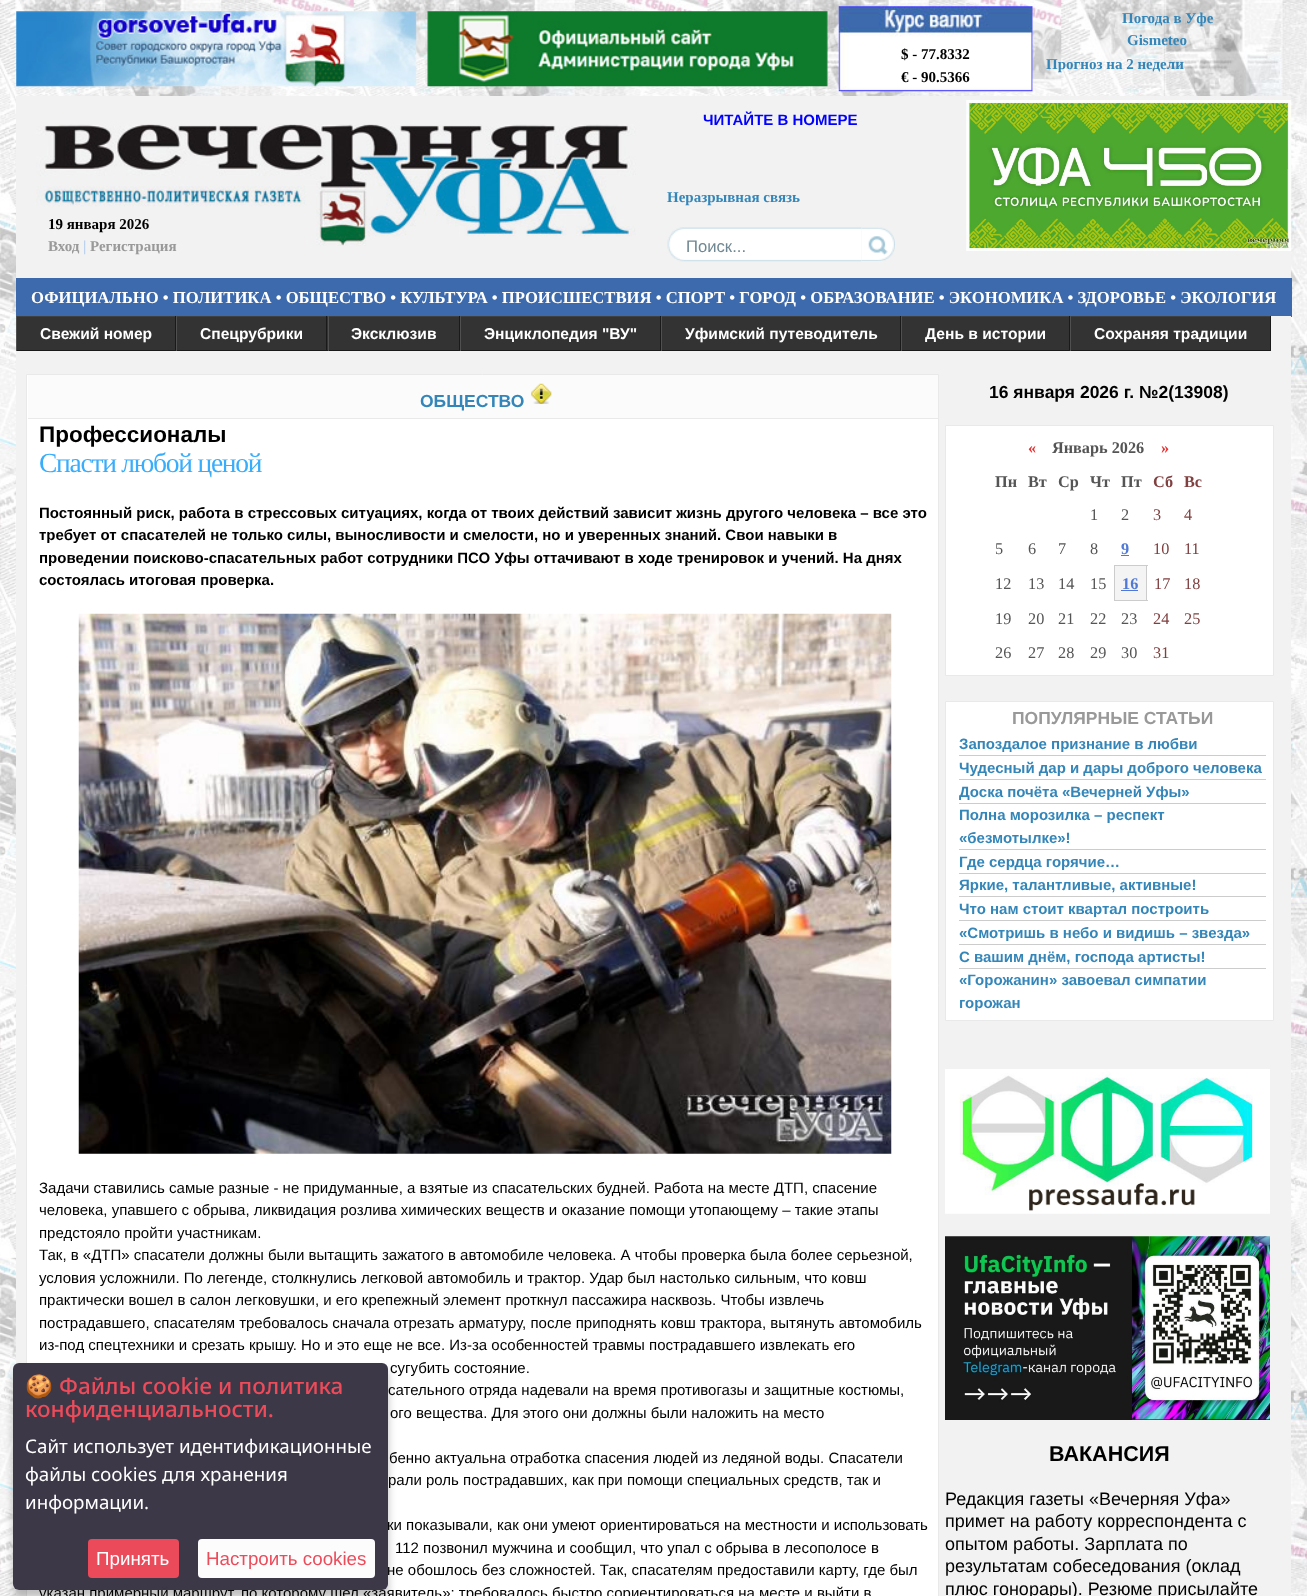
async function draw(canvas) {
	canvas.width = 1307;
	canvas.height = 1596;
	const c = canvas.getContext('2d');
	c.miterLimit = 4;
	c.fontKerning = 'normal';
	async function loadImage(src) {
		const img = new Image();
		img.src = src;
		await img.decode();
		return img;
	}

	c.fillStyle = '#fff';
	c.fillRect(0, 0, 1307, 1596);
	c.drawImage(await loadImage('img1.png'), 0, 0, 1307, 1596);
	c.drawImage(await loadImage('img2.png'), 16, 11, 401, 76);
	c.drawImage(await loadImage('img3.png'), 427, 11, 401, 76);
	c.drawImage(await loadImage('img4.png'), 838, 6, 195, 86);
	c.font = 'bold 15px Liberation Serif';
	c.fillStyle = '#000';
	c.fillText('$ - 77.8332', 901, 59);
	c.fillText('€ - 90.5366', 901, 82);
	c.fillStyle = '#3486b9';
	for (const [text, x, y] of [
		['Погода в Уфе', 1122, 23],
		['Gismeteo', 1127, 45],
		['Прогноз на 2 недели', 1046, 69],
	]) {
		c.fillText(text, x, y);
	}
	c.fillStyle = '#f2f2f2';
	c.fillRect(16, 96, 628, 182);
	c.drawImage(await loadImage('img5.png'), 36, 124, 600, 122);
	c.fillStyle = '#000';
	c.fillText('19 января 2026', 48, 229);
	c.fillStyle = '#999';
	c.fillText('Вход', 48, 251);
	c.fillStyle = '#b5ceed';
	c.fillText('|', 83, 251);
	c.fillStyle = '#999';
	c.fillText('Регистрация', 90, 251);
	c.fillStyle = '#f2f2f2';
	c.fillRect(644, 96, 274, 182);
	c.fillRect(918, 96, 373, 182);
	c.drawImage(await loadImage('img6.png'), 966, 100, 326, 151);
	c.font = 'bold 15px Liberation Sans';
	c.fillStyle = '#00f';
	c.fillText('ЧИТАЙТЕ В НОМЕРЕ', 703, 125);
	c.font = 'bold 15px Liberation Serif';
	c.fillStyle = '#3486b9';
	c.fillText('Неразрывная связь', 667, 202);
	c.drawImage(await loadImage('img7.png'), 667, 227, 195, 35);
	c.fillStyle = '#fff';
	c.fillRect(680, 258, 3, 1);
	c.font = '16.67px Liberation Sans';
	c.fillStyle = '#708893';
	c.fillText('Поиск...', 686, 252);
	c.drawImage(await loadImage('img8.png'), 861, 227, 34, 34);
	c.fillStyle = '#3d6aad';
	c.fillRect(16, 278, 1276, 39);
	c.font = 'bold 16.67px Liberation Serif';
	c.fillStyle = '#fff';
	c.fillText('ОФИЦИАЛЬНО • ПОЛИТИКА • ОБЩЕСТВО • КУЛЬТУРА • ПРОИСШЕСТВИЯ • СПОРТ • ГОРОД • ОБРАЗОВАНИЕ • ЭКОНОМИКА • ЗДОРОВЬЕ • ЭКОЛОГИЯ', 31, 303);
	for (const [x, y, w, h, color] of [
		[1271, 316, 20, 35, '#f2f2f2'],
		[17, 317, 158, 33, '#333'],
		[16, 316, 1255, 1, '#404040'],
		[175, 316, 1, 35, '#1a1a1a'],
		[16, 350, 160, 1, '#1a1a1a'],
		[16, 316, 1, 35, '#505050'],
	]) {
		c.fillStyle = color;
		c.fillRect(x, y, w, h);
	}
	c.font = 'bold 15.6px Liberation Sans';
	c.fillStyle = '#fff';
	c.fillText('Свежий номер', 40, 339);
	for (const [x, y, w, h, color] of [
		[177, 317, 151, 33, '#333'],
		[326, 316, 1, 35, '#1a1a1a'],
		[176, 350, 152, 1, '#1a1a1a'],
		[176, 316, 1, 35, '#505050'],
	]) {
		c.fillStyle = color;
		c.fillRect(x, y, w, h);
	}
	c.fillStyle = '#fff';
	c.fillText('Спецрубрики', 200, 339);
	for (const [x, y, w, h, color] of [
		[329, 317, 130, 33, '#333'],
		[459, 316, 1, 35, '#1a1a1a'],
		[328, 350, 132, 1, '#1a1a1a'],
		[328, 316, 1, 35, '#505050'],
	]) {
		c.fillStyle = color;
		c.fillRect(x, y, w, h);
	}
	c.fillStyle = '#fff';
	c.fillText('Эксклюзив', 351, 339);
	for (const [x, y, w, h, color] of [
		[461, 317, 199, 33, '#333'],
		[660, 316, 1, 35, '#1a1a1a'],
		[460, 350, 201, 1, '#1a1a1a'],
		[460, 316, 1, 35, '#505050'],
	]) {
		c.fillStyle = color;
		c.fillRect(x, y, w, h);
	}
	c.fillStyle = '#fff';
	c.fillText('Энциклопедия "ВУ"', 484, 339);
	for (const [x, y, w, h, color] of [
		[662, 317, 238, 33, '#333'],
		[900, 316, 1, 35, '#1a1a1a'],
		[661, 350, 240, 1, '#1a1a1a'],
		[661, 316, 1, 35, '#505050'],
	]) {
		c.fillStyle = color;
		c.fillRect(x, y, w, h);
	}
	c.fillStyle = '#fff';
	c.fillText('Уфимский путеводитель', 685, 339);
	for (const [x, y, w, h, color] of [
		[902, 317, 167, 33, '#333'],
		[1069, 316, 1, 35, '#1a1a1a'],
		[901, 350, 169, 1, '#1a1a1a'],
		[901, 316, 1, 35, '#505050'],
	]) {
		c.fillStyle = color;
		c.fillRect(x, y, w, h);
	}
	c.fillStyle = '#fff';
	c.fillText('День в истории', 925, 339);
	for (const [x, y, w, h, color] of [
		[1071, 317, 199, 33, '#333'],
		[1270, 316, 1, 35, '#1a1a1a'],
		[1070, 350, 201, 1, '#1a1a1a'],
		[1070, 316, 1, 35, '#505050'],
	]) {
		c.fillStyle = color;
		c.fillRect(x, y, w, h);
	}
	c.fillStyle = '#fff';
	c.fillText('Сохраняя традиции', 1094, 339);
	c.fillStyle = '#f2f2f2';
	c.fillRect(16, 351, 1275, 1245);
	c.fillStyle = '#fff';
	c.beginPath();
	c.rect(26.5, 374.5, 912, 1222);
	c.fill();
	c.strokeStyle = '#e9e9e9';
	c.stroke();
	c.fillStyle = '#fbfbfb';
	c.fillRect(28, 375, 910, 43);
	c.fillStyle = '#e9e9e9';
	c.fillRect(28, 418, 910, 1);
	c.font = 'bold 17.5px Liberation Sans';
	c.fillStyle = '#3486b9';
	c.fillText('ОБЩЕСТВО', 420, 407);
	c.drawImage(await loadImage('img9.png'), 531, 383, 21, 21);
	c.font = 'bold 22.5px Liberation Sans';
	c.fillStyle = '#000';
	c.fillText('Профессионалы', 39, 442);
	c.letterSpacing = '-1.25px';
	c.font = '27.5px Liberation Serif';
	c.fillStyle = '#38adfb';
	c.fillText('Спасти любой ценой', 39, 472);
	c.letterSpacing = '0px';
	c.font = 'bold 15px Liberation Sans';
	c.fillStyle = '#000';
	for (const [text, x, y] of [
		['Постоянный риск, работа в стрессовых ситуациях, когда от твоих действий зависит жизнь другого человека – все это', 39, 518],
		['требует от спасателей не только силы, выносливости и смелости, но и уверенных знаний. Свои навыки в', 39, 540],
		['проведении поисково-спасательных работ сотрудники ПСО Уфы оттачивают в ходе тренировок и учений. На днях', 39, 563],
		['состоялась итоговая проверка.', 39, 585],
	]) {
		c.fillText(text, x, y);
	}
	c.drawImage(await loadImage('img10.png'), 78, 613, 814, 541);
	c.font = '15px Liberation Sans';
	for (const [text, x, y] of [
		['Задачи ставились самые разные - не придуманные, а взятые из спасательских будней. Работа на месте ДТП, спасение', 39, 1193],
		['человека, упавшего с обрыва, ликвидация розлива химических веществ и оказание помощи утопающему – такие этапы', 39, 1215],
		['предстояло пройти участникам.', 39, 1238],
		['Так, в «ДТП» спасатели должны были вытащить зажатого в автомобиле человека. А чтобы проверка была более серьезной,', 39, 1260],
		['условия усложнили. По легенде, столкнулись легковой автомобиль и трактор. Удар был настолько сильным, что ковш', 39, 1283],
		['практически вошел в салон легковушки, и его крепежный элемент проткнул пассажира насквозь. Чтобы извлечь', 39, 1305],
		['пострадавшего, спасателям требовалось сначала отрезать арматуру, после приподнять ковш трактора, вытянуть автомобиль', 39, 1328],
		['из-под спецтехники и срезать крышу. Но и это еще не все. Из-за особенностей травмы пострадавшего извлекать его', 39, 1350],
		['сугубить состояние.', 390, 1373],
		['сательного отряда надевали на время противогазы и защитные костюмы,', 388, 1395],
		['ого вещества. Для этого они должны были наложить на место', 390, 1418],
		['бенно актуальна отработка спасения людей из ледяной воды. Спасатели', 389, 1463],
		['рали роль пострадавших, как при помощи специальных средств, так и', 388, 1485],
		['ки показывали, как они умеют ориентироваться на местности и использовать', 387, 1530],
		['112 позвонил мужчина и сообщил, что упал с обрыва в лесополосе в', 395, 1553],
		['не обошлось без сложностей. Так, спасателям предоставили карту, где был', 387, 1575],
		['указан примерный маршрут, по которому шел «заявитель»: требовалось быстро сориентироваться на месте и выйти в', 39, 1598],
	]) {
		c.fillText(text, x, y);
	}
	c.font = 'bold 17.5px Liberation Sans';
	c.fillText('16 января 2026 г. №2(13908)', 989, 398);
	c.fillStyle = '#fff';
	c.beginPath();
	c.rect(945.5, 425.5, 328, 250);
	c.fill();
	c.stroke();
	c.font = 'bold 16.25px Liberation Serif';
	c.fillStyle = '#e73231';
	c.fillText('«', 1028, 453);
	c.fillStyle = '#555';
	c.fillText('Январь 2026', 1052, 453);
	c.fillStyle = '#e73231';
	c.fillText('»', 1161, 453);
	c.fillStyle = '#555';
	for (const [text, x, y] of [
		['Пн', 995, 487],
		['Вт', 1028, 487],
		['Ср', 1058, 487],
		['Чт', 1090, 487],
		['Пт', 1121, 487],
	]) {
		c.fillText(text, x, y);
	}
	c.fillStyle = '#804040';
	c.fillText('Сб', 1153, 487);
	c.fillText('Вс', 1184, 487);
	c.font = '16.25px Liberation Serif';
	c.fillStyle = '#555';
	c.fillText('1', 1090, 520);
	c.fillText('2', 1121, 520);
	c.fillStyle = '#804040';
	c.fillText('3', 1153, 520);
	c.fillText('4', 1184, 520);
	c.fillStyle = '#555';
	for (const [text, x, y] of [
		['5', 995, 554],
		['6', 1028, 554],
		['7', 1058, 554],
		['8', 1090, 554],
	]) {
		c.fillText(text, x, y);
	}
	c.font = 'bold 16.25px Liberation Serif';
	c.fillStyle = '#5078d5';
	c.fillText('9', 1121, 554);
	c.fillRect(1121, 555, 8, 1);
	c.font = '16.25px Liberation Serif';
	c.fillStyle = '#804040';
	c.fillText('10', 1153, 554);
	c.fillText('11', 1184, 554);
	c.fillStyle = '#555';
	for (const [text, x, y] of [
		['12', 995, 589],
		['13', 1028, 589],
		['14', 1058, 589],
		['15', 1090, 589],
	]) {
		c.fillText(text, x, y);
	}
	for (const [x, y, w, h, color] of [
		[1115, 566, 31, 34, '#f4f4f4'],
		[1114, 565, 34, 1, '#ccc'],
		[1146, 565, 1, 36, '#ccc'],
		[1114, 600, 34, 1, '#ccc'],
		[1114, 565, 1, 36, '#ccc'],
	]) {
		c.fillStyle = color;
		c.fillRect(x, y, w, h);
	}
	c.font = 'bold 16.25px Liberation Serif';
	c.fillStyle = '#5078d5';
	c.fillText('16', 1122, 589);
	c.fillRect(1121, 590, 17, 1);
	c.font = '16.25px Liberation Serif';
	c.fillStyle = '#804040';
	c.fillText('17', 1154, 589);
	c.fillText('18', 1184, 589);
	c.fillStyle = '#555';
	for (const [text, x, y] of [
		['19', 995, 624],
		['20', 1028, 624],
		['21', 1058, 624],
		['22', 1090, 624],
		['23', 1121, 624],
	]) {
		c.fillText(text, x, y);
	}
	c.fillStyle = '#804040';
	c.fillText('24', 1153, 624);
	c.fillText('25', 1184, 624);
	c.fillStyle = '#555';
	for (const [text, x, y] of [
		['26', 995, 658],
		['27', 1028, 658],
		['28', 1058, 658],
		['29', 1090, 658],
		['30', 1121, 658],
	]) {
		c.fillText(text, x, y);
	}
	c.fillStyle = '#804040';
	c.fillText('31', 1153, 658);
	c.fillStyle = '#fff';
	c.beginPath();
	c.rect(945.5, 701.5, 328, 319);
	c.fill();
	c.stroke();
	c.font = 'bold 17.5px Liberation Sans';
	c.fillStyle = '#999';
	c.fillText('ПОПУЛЯРНЫЕ СТАТЬИ', 1012, 724);
	c.fillStyle = '#ccc';
	c.fillRect(959, 755, 307, 1);
	c.font = 'bold 15px Liberation Sans';
	c.fillStyle = '#3486b9';
	c.fillText('Запоздалое признание в любви', 959, 749);
	c.fillStyle = '#ccc';
	c.fillRect(959, 779, 307, 1);
	c.fillStyle = '#3486b9';
	c.fillText('Чудесный дар и дары доброго человека', 959, 773);
	c.fillStyle = '#ccc';
	c.fillRect(959, 803, 307, 1);
	c.fillStyle = '#3486b9';
	c.fillText('Доска почёта «Вечерней Уфы»', 959, 797);
	c.fillStyle = '#ccc';
	c.fillRect(959, 849, 307, 1);
	c.fillStyle = '#3486b9';
	c.fillText('Полна морозилка – респект', 959, 820);
	c.fillText('«безмотылке»!', 959, 843);
	c.fillStyle = '#ccc';
	c.fillRect(959, 873, 307, 1);
	c.fillStyle = '#3486b9';
	c.fillText('Где сердца горячие…', 959, 867);
	c.fillStyle = '#ccc';
	c.fillRect(959, 896, 307, 1);
	c.fillStyle = '#3486b9';
	c.fillText('Яркие, талантливые, активные!', 959, 890);
	c.fillStyle = '#ccc';
	c.fillRect(959, 920, 307, 1);
	c.fillStyle = '#3486b9';
	c.fillText('Что нам стоит квартал построить', 959, 914);
	c.fillStyle = '#ccc';
	c.fillRect(959, 944, 307, 1);
	c.fillStyle = '#3486b9';
	c.fillText('«Смотришь в небо и видишь – звезда»', 959, 938);
	c.fillStyle = '#ccc';
	c.fillRect(959, 968, 307, 1);
	c.fillStyle = '#3486b9';
	for (const [text, x, y] of [
		['С вашим днём, господа артисты!', 959, 962],
		['«Горожанин» завоевал симпатии', 959, 985],
		['горожан', 959, 1008],
	]) {
		c.fillText(text, x, y);
	}
	c.drawImage(await loadImage('img11.png'), 945, 1069, 325, 145);
	c.drawImage(await loadImage('img12.png'), 945, 1236, 325, 184);
	c.font = 'bold 21.5px Liberation Sans';
	c.fillStyle = '#000';
	c.fillText('ВАКАНСИЯ', 1049, 1461);
	c.font = '18px Liberation Sans';
	for (const [text, x, y] of [
		['Редакция газеты «Вечерняя Уфа»', 945, 1505],
		['примет на работу корреспондента с', 945, 1527],
		['опытом работы. Зарплата по', 945, 1550],
		['результатам собеседования (оклад', 945, 1572],
		['плюс гонорары). Резюме присылайте', 945, 1595],
	]) {
		c.fillText(text, x, y);
	}
	c.save();
	c.beginPath();
	c.moveTo(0, 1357);
	c.lineTo(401, 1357);
	c.lineTo(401, 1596);
	c.lineTo(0, 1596);
	c.closePath();
	c.moveTo(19, 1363);
	c.lineTo(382, 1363);
	c.bezierCurveTo(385.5, 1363, 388, 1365.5, 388, 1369);
	c.lineTo(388, 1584);
	c.bezierCurveTo(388, 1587.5, 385.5, 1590, 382, 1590);
	c.lineTo(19, 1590);
	c.bezierCurveTo(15.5, 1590, 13, 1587.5, 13, 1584);
	c.lineTo(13, 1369);
	c.bezierCurveTo(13, 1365.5, 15.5, 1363, 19, 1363);
	c.closePath();
	c.clip('evenodd');
	c.fillStyle = '#00000040';
	c.filter = 'blur(4px)';
	c.beginPath();
	c.roundRect(13, 1370, 375, 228, 6);
	c.fill();
	c.filter = 'none';
	c.restore();
	c.fillStyle = '#3b3646fc';
	c.beginPath();
	c.roundRect(13, 1363, 375, 227, 6);
	c.fill();
	c.font = '22.5px Noto Color Emoji';
	c.fillStyle = '#ec4b5a';
	c.fillText('🍪', 25, 1394);
	c.font = '500 22.5px Noto Sans';
	c.fillText('Файлы cookie и политика', 59, 1394);
	c.fillText('конфиденциальности.', 25, 1417);
	c.font = '18.75px Noto Sans';
	c.fillStyle = '#fff';
	for (const [text, x, y] of [
		['Сайт использует идентификационные', 25, 1453],
		['файлы cookies для хранения', 25, 1481],
		['информации.', 25, 1509],
	]) {
		c.fillText(text, x, y);
	}
	c.fillStyle = '#ee4b5afc';
	c.beginPath();
	c.roundRect(88, 1539, 91, 39, 4);
	c.fill();
	c.font = '18.75px Liberation Sans';
	c.fillStyle = '#fff';
	c.fillText('Принять', 96, 1565);
	c.fillStyle = '#fffffffc';
	c.beginPath();
	c.roundRect(198, 1539, 177, 39, 4);
	c.fill();
	c.fillStyle = '#ec4b5a';
	c.fillText('Настроить сookies', 206, 1565);
}

draw(document.querySelector('canvas'));
